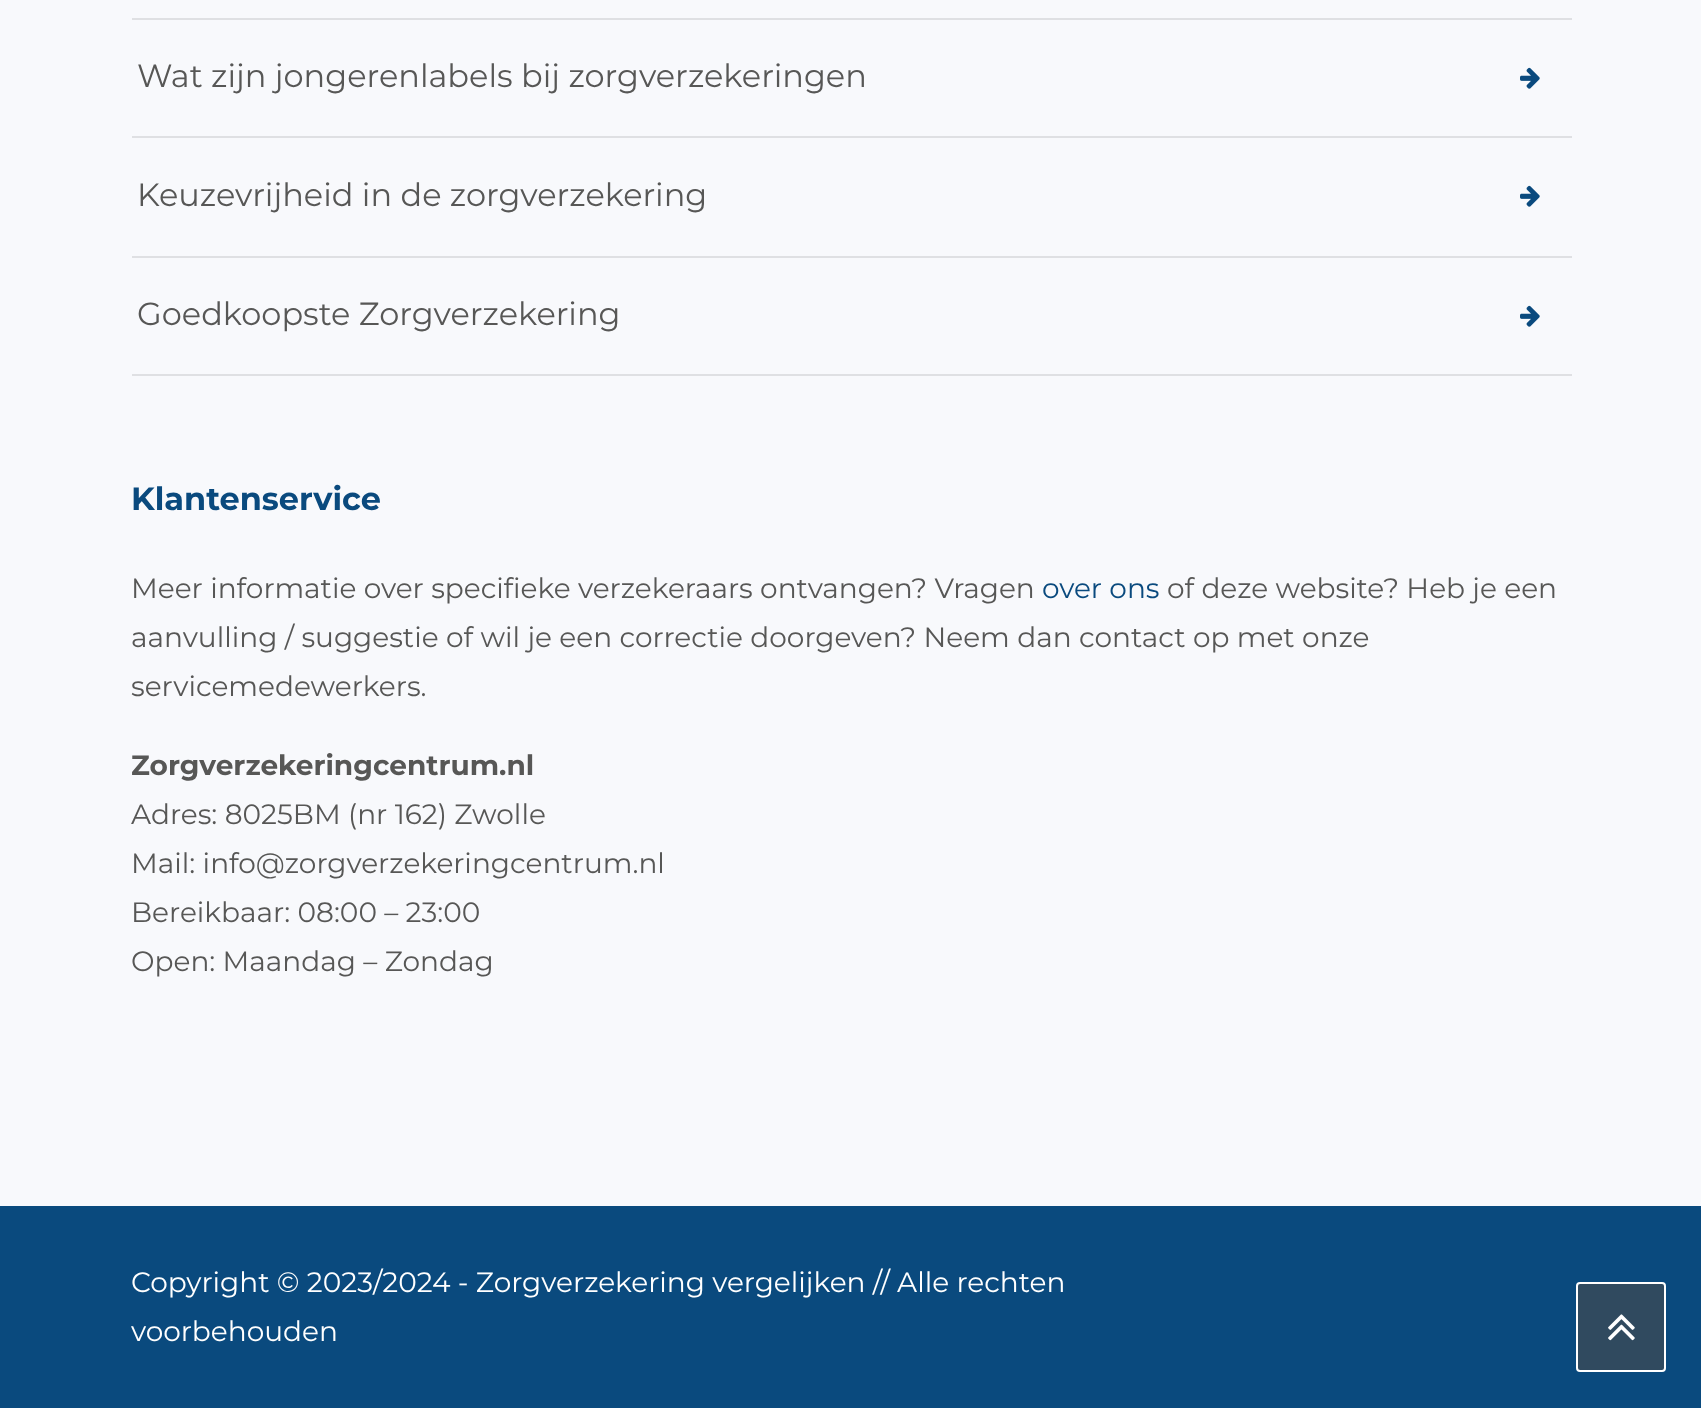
async function draw(canvas) {
	canvas.width = 1701;
	canvas.height = 1408;
	const c = canvas.getContext('2d');
	c.miterLimit = 4;
	c.fontKerning = 'normal';
	async function loadImage(src) {
		const img = new Image();
		img.src = src;
		await img.decode();
		return img;
	}

	c.fillStyle = '#f8f9fc';
	c.fillRect(0, 0, 1701, 1408);
	c.fillStyle = '#dfe0e3';
	c.fillRect(132, 18, 1440, 2);
	c.fillRect(132, 136, 1440, 2);
	c.font = '32px Montserrat';
	c.fillStyle = '#575756';
	c.fillText('Wat zijn jongerenlabels bij zorgverzekeringen', 137, 87);
	c.drawImage(await loadImage('img1.png'), 1520, 67, 20, 22);
	c.fillStyle = '#dfe0e3';
	c.fillRect(132, 256, 1440, 2);
	c.fillStyle = '#575756';
	c.fillText('Keuzevrijheid in de zorgverzekering', 137, 206);
	c.drawImage(await loadImage('img1.png'), 1520, 185, 20, 22);
	c.fillStyle = '#dfe0e3';
	c.fillRect(132, 374, 1440, 2);
	c.fillStyle = '#575756';
	c.fillText('Goedkoopste Zorgverzekering', 137, 325);
	c.drawImage(await loadImage('img1.png'), 1520, 305, 20, 22);
	c.font = 'bold 32px Montserrat';
	c.fillStyle = '#0a4a7e';
	c.fillText('Klantenservice', 131, 510);
	c.font = '28px Montserrat';
	c.fillStyle = '#575756';
	c.fillText('Meer informatie over specifieke verzekeraars ontvangen? Vragen', 131, 598);
	c.fillStyle = '#0a4a7e';
	c.fillText('over ons', 1042, 598);
	c.fillStyle = '#575756';
	for (const [text, x, y] of [
		['of deze website? Heb je een', 1167, 598],
		['aanvulling / suggestie of wil je een correctie doorgeven? Neem dan contact op met onze', 131, 647],
		['servicemedewerkers.', 131, 696],
	]) {
		c.fillText(text, x, y);
	}
	c.font = 'bold 28px Montserrat';
	c.fillText('Zorgverzekeringcentrum.nl', 131, 775);
	c.font = '28px Montserrat';
	for (const [text, x, y] of [
		['Adres: 8025BM (nr 162) Zwolle', 131, 824],
		['Mail: info@zorgverzekeringcentrum.nl', 131, 873],
		['Bereikbaar: 08:00 – 23:00', 131, 922],
		['Open: Maandag – Zondag', 131, 971],
	]) {
		c.fillText(text, x, y);
	}
	c.fillStyle = '#0a4a7e';
	c.fillRect(0, 1206, 1701, 202);
	c.fillStyle = '#fff';
	c.fillText('Copyright © 2023/2024 - Zorgverzekering vergelijken // Alle rechten', 131, 1292);
	c.fillText('voorbehouden', 131, 1341);
	c.fillStyle = '#304a5f';
	c.beginPath();
	c.roundRect(1577, 1283, 88, 88, 3);
	c.fill();
	c.strokeStyle = '#fff';
	c.lineWidth = 2;
	c.stroke();
	c.drawImage(await loadImage('img2.png'), 1608, 1314, 27, 27);
}

draw(document.querySelector('canvas'));
